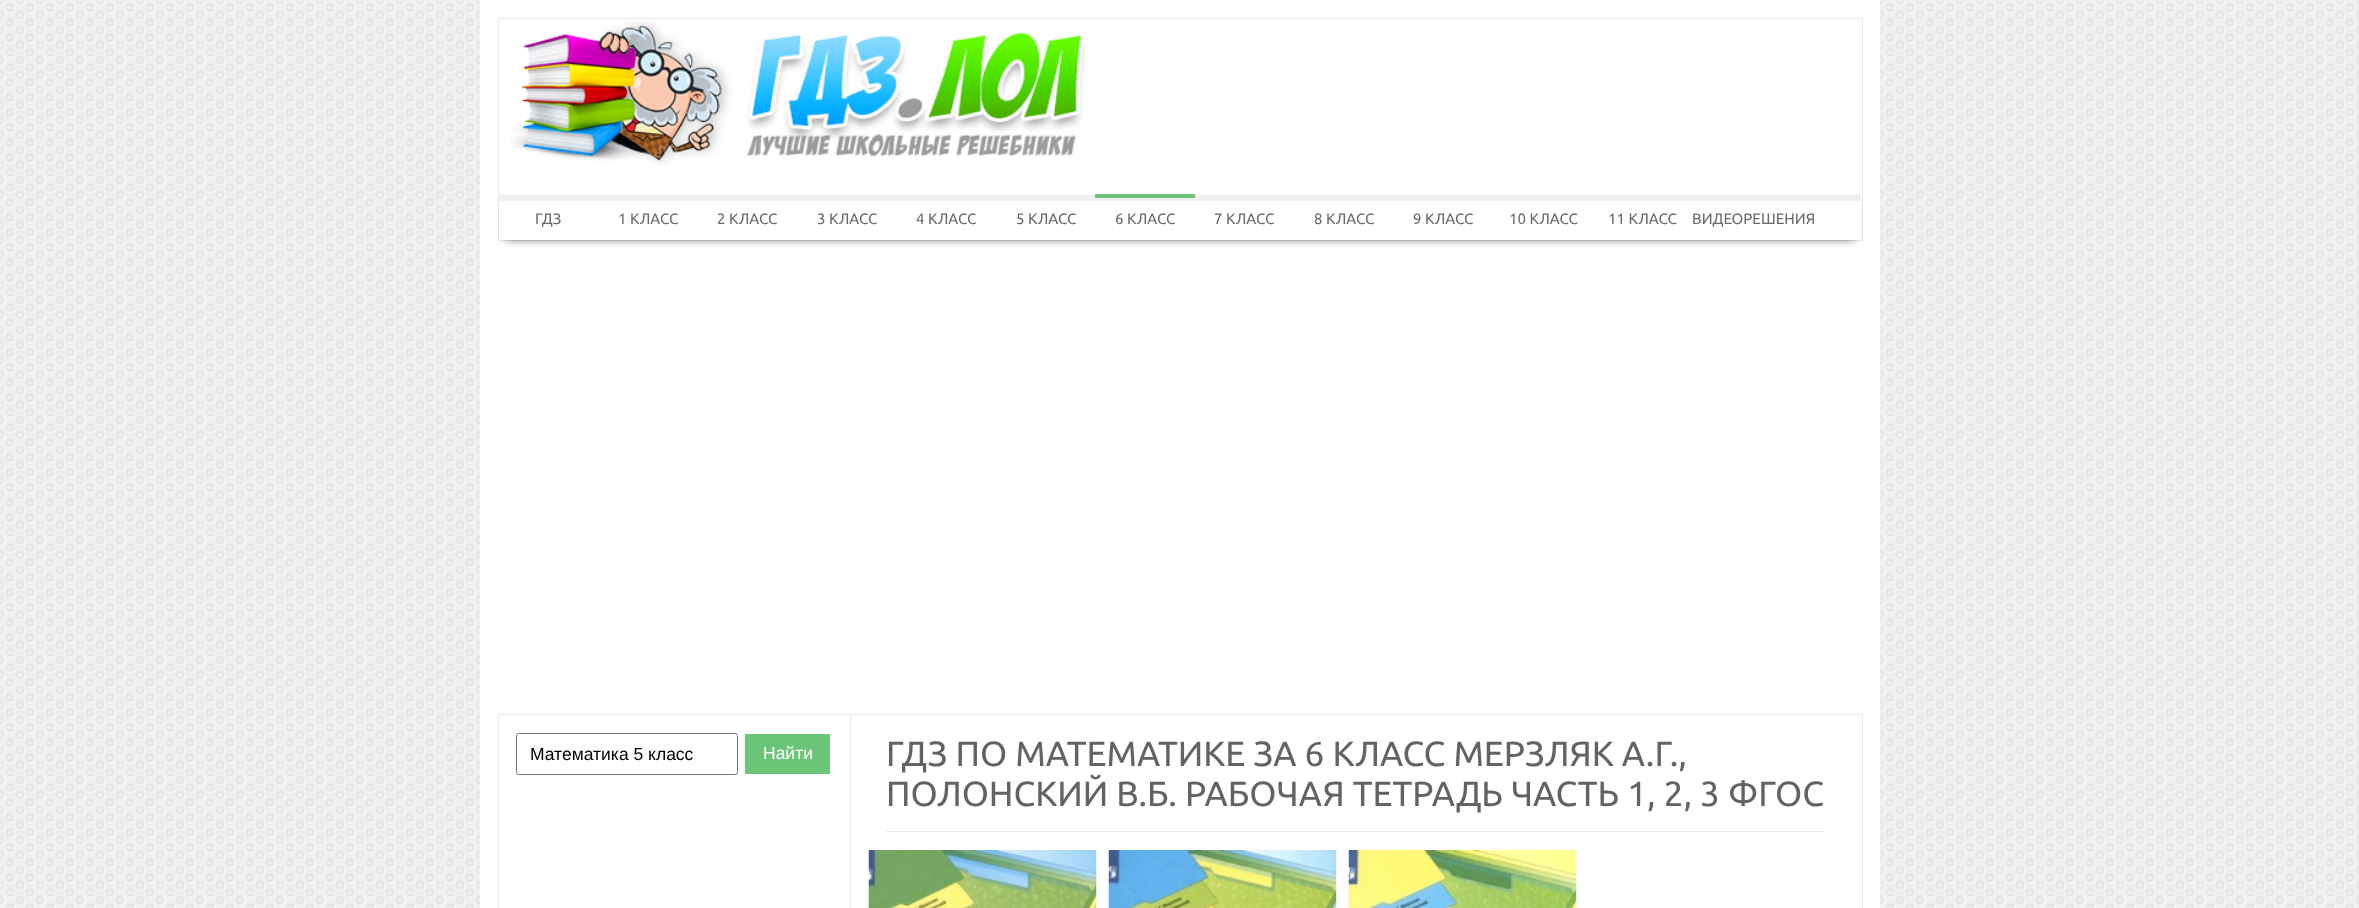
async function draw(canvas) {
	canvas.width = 2359;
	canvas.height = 908;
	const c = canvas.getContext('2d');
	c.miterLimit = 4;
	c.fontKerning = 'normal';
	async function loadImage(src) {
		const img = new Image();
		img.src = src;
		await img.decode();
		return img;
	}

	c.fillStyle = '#fff';
	c.fillRect(0, 0, 2359, 908);
	c.drawImage(await loadImage('img1.png'), 0, 0, 2359, 908);
	c.fillRect(480, 0, 1400, 908);
	c.strokeStyle = '#e9e9e9';
	c.strokeRect(498.5, 18.5, 1364, 222);
	c.drawImage(await loadImage('img2.png'), 509, 20, 577, 145);
	c.save();
	c.beginPath();
	c.moveTo(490, 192);
	c.lineTo(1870, 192);
	c.lineTo(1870, 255);
	c.lineTo(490, 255);
	c.closePath();
	c.moveTo(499, 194);
	c.lineTo(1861, 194);
	c.lineTo(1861, 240);
	c.lineTo(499, 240);
	c.closePath();
	c.clip('evenodd');
	c.fillStyle = '#323232bf';
	c.filter = 'blur(5px)';
	c.beginPath();
	c.rect(506, 208, 1348, 31);
	c.fill();
	c.filter = 'none';
	c.restore();
	c.fillStyle = '#efefef';
	c.fillRect(499, 195, 1362, 6);
	c.font = '15px Ubuntu';
	c.fillStyle = '#6a6a6a';
	for (const [text, x, y] of [
		['ГДЗ', 535, 224],
		['1 КЛАСС', 618, 224],
		['2 КЛАСС', 717, 224],
		['3 КЛАСС', 817, 224],
		['4 КЛАСС', 916, 224],
		['5 КЛАСС', 1016, 224],
	]) {
		c.fillText(text, x, y);
	}
	c.fillStyle = '#6ac579';
	c.fillRect(1095, 194, 100, 4);
	c.fillStyle = '#6a6a6a';
	for (const [text, x, y] of [
		['6 КЛАСС', 1115, 224],
		['7 КЛАСС', 1214, 224],
		['8 КЛАСС', 1314, 224],
		['9 КЛАСС', 1413, 224],
		['10 КЛАСС', 1509, 224],
		['11 КЛАСС', 1608, 224],
		['ВИДЕОРЕШЕНИЯ', 1692, 224],
	]) {
		c.fillText(text, x, y);
	}
	c.strokeRect(498.5, 714.5, 1364, 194);
	c.beginPath();
	c.roundRect(516.5, 733.5, 221, 41, 2);
	c.strokeStyle = '#767676';
	c.stroke();
	c.font = '17.5px Liberation Sans';
	c.fillStyle = '#000';
	c.fillText('Математика 5 класс', 530, 760);
	c.fillStyle = '#6ac579';
	c.fillRect(745, 734, 85, 40);
	c.fillStyle = '#fff';
	c.fillText('Найти', 763, 759);
	c.fillStyle = '#e9e9e9';
	c.fillRect(850, 716, 1, 192);
	c.fillRect(886, 831, 939, 1);
	c.font = '35px Ubuntu';
	c.fillStyle = '#636363';
	c.fillText('ГДЗ ПО МАТЕМАТИКЕ ЗА 6 КЛАСС МЕРЗЛЯК А.Г.,', 886, 766);
	c.fillText('ПОЛОНСКИЙ В.Б. РАБОЧАЯ ТЕТРАДЬ ЧАСТЬ 1, 2, 3 ФГОС', 886, 806);
	c.drawImage(await loadImage('img3.png'), 868, 850, 229, 58);
	c.drawImage(await loadImage('img4.png'), 1108, 850, 229, 58);
	c.drawImage(await loadImage('img5.png'), 1348, 850, 229, 58);
}

draw(document.querySelector('canvas'));
